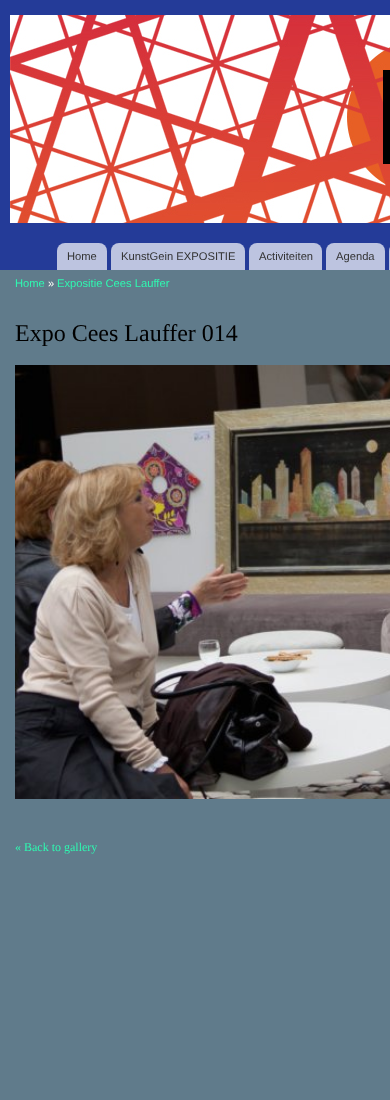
async function draw(canvas) {
	canvas.width = 390;
	canvas.height = 1100;
	const c = canvas.getContext('2d');
	c.miterLimit = 4;
	c.fontKerning = 'normal';
	async function loadImage(src) {
		const img = new Image();
		img.src = src;
		await img.decode();
		return img;
	}

	c.fillStyle = '#607b8b';
	c.fillRect(0, 0, 390, 1100);
	c.fillStyle = '#243b98';
	c.fillRect(0, 0, 390, 270);
	c.drawImage(await loadImage('img1.png'), 10, 15, 380, 208);
	c.fillStyle = '#bdc4e0';
	c.beginPath();
	c.roundRect(57, 243, 50, 27, [8, 8, 0, 0]);
	c.fill();
	c.font = '11.2px Liberation Sans';
	c.fillStyle = '#333';
	c.fillText('Home', 67, 260);
	c.fillStyle = '#bdc4e0';
	c.beginPath();
	c.roundRect(111, 243, 134, 27, [8, 8, 0, 0]);
	c.fill();
	c.fillStyle = '#333';
	c.fillText('KunstGein EXPOSITIE', 121, 260);
	c.fillStyle = '#bdc4e0';
	c.beginPath();
	c.roundRect(249, 243, 73, 27, [8, 8, 0, 0]);
	c.fill();
	c.fillStyle = '#333';
	c.fillText('Activiteiten', 259, 260);
	c.fillStyle = '#bdc4e0';
	c.beginPath();
	c.roundRect(326, 243, 59, 27, [8, 8, 0, 0]);
	c.fill();
	c.fillStyle = '#333';
	c.fillText('Agenda', 336, 260);
	c.fillStyle = '#bdc4e0';
	c.beginPath();
	c.moveTo(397, 243);
	c.lineTo(390, 243);
	c.bezierCurveTo(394.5, 243, 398, 246.5, 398, 251);
	c.lineTo(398, 270);
	c.lineTo(389, 270);
	c.lineTo(389, 251);
	c.bezierCurveTo(389, 246.5, 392.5, 243, 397, 243);
	c.closePath();
	c.fill();
	c.fillStyle = '#2ff8b1';
	c.fillText('Home', 15, 287);
	c.fillStyle = '#fffefa';
	c.fillText('»', 48, 287);
	c.fillStyle = '#2ff8b1';
	c.fillText('Expositie Cees Lauffer', 57, 287);
	c.font = '24px Liberation Serif';
	c.fillStyle = '#000';
	c.fillText('Expo Cees Lauffer 014', 15, 341);
	c.drawImage(await loadImage('img2.png'), 15, 365, 375, 434);
	c.font = '12px Liberation Serif';
	c.fillStyle = '#2ff8b1';
	c.fillText('« Back to gallery', 15, 851);
}

draw(document.querySelector('canvas'));
